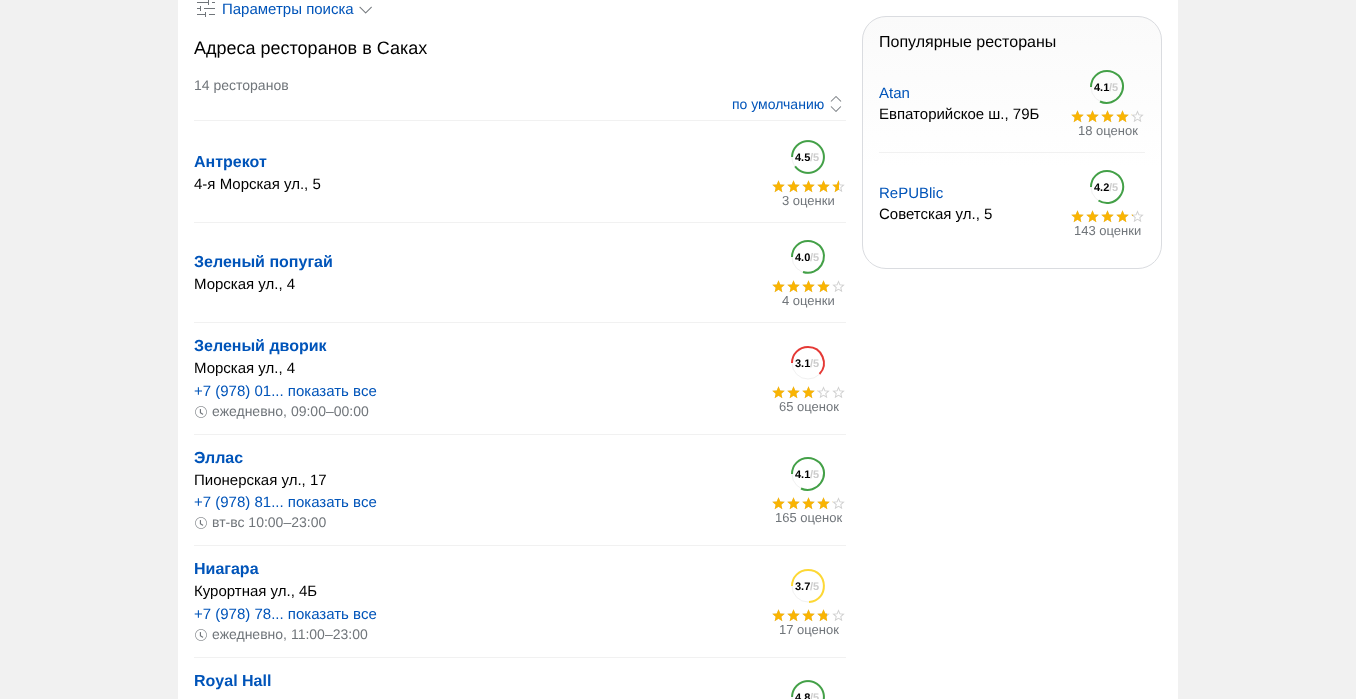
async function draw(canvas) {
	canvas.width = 1356;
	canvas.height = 699;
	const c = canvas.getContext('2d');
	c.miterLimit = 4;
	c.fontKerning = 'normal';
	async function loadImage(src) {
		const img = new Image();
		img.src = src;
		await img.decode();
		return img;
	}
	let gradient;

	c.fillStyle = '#f1f1f1';
	c.fillRect(0, 0, 1356, 699);
	c.fillStyle = '#fff';
	c.fillRect(178, 0, 1000, 699);
	c.drawImage(await loadImage('img1.png'), 197, 0, 18, 17);
	c.font = '15px Liberation Sans';
	c.fillStyle = '#0054b9';
	c.fillText('Параметры поиска', 222, 14);
	c.drawImage(await loadImage('img2.png'), 359, 6, 13, 8);
	c.font = '18px Liberation Sans';
	c.fillStyle = '#000';
	c.fillText('Адреса ресторанов в Саках', 194, 54);
	c.font = '14px Liberation Sans';
	c.fillStyle = '#70757a';
	c.fillText('14 ресторанов', 194, 90);
	c.fillStyle = '#f1f1f1';
	c.fillRect(194, 120, 652, 1);
	c.drawImage(await loadImage('img3.png'), 830, 96, 12, 16);
	c.fillStyle = '#0054b9';
	c.fillText('по умолчанию', 732, 109);
	c.font = 'bold 16px Liberation Sans';
	c.fillText('Антрекот', 194, 167);
	c.font = '15px Liberation Sans';
	c.fillStyle = '#000';
	c.fillText('4-я Морская ул., 5', 194, 189);
	c.drawImage(await loadImage('img4.png'), 791, 140, 34, 34);
	c.font = 'bold 11px Liberation Sans';
	c.fillText('4.5', 795, 161);
	c.fillStyle = '#ccc';
	c.fillText('/5', 810, 161);
	c.drawImage(await loadImage('img5.png'), 772, 180, 73, 12);
	c.drawImage(await loadImage('img6.png'), 772, 180, 67, 13);
	c.font = '13px Liberation Sans';
	c.fillStyle = '#70757a';
	c.fillText('3 оценки', 782, 205);
	c.fillStyle = '#f1f1f1';
	c.fillRect(194, 222, 652, 1);
	c.font = 'bold 16px Liberation Sans';
	c.fillStyle = '#0054b9';
	c.fillText('Зеленый попугай', 194, 267);
	c.font = '15px Liberation Sans';
	c.fillStyle = '#000';
	c.fillText('Морская ул., 4', 194, 289);
	c.beginPath();
	c.arc(808, 257, 16, 0, 2 * Math.PI);
	c.strokeStyle = '#f1f1f1';
	c.stroke();
	c.beginPath();
	c.moveTo(808, 241);
	c.bezierCurveTo(812, 241, 816.5, 243, 819.5, 245.5);
	c.bezierCurveTo(831, 257.5, 818.5, 277, 803, 272);
	c.moveTo(792, 257);
	c.bezierCurveTo(792, 248, 799, 241, 808, 241);
	c.strokeStyle = '#43a047';
	c.lineWidth = 2;
	c.stroke();
	c.font = 'bold 11px Liberation Sans';
	c.fillText('4.0', 795, 261);
	c.fillStyle = '#ccc';
	c.fillText('/5', 810, 261);
	c.drawImage(await loadImage('img5.png'), 772, 280, 73, 12);
	c.drawImage(await loadImage('img7.png'), 772, 280, 58, 13);
	c.font = '13px Liberation Sans';
	c.fillStyle = '#70757a';
	c.fillText('4 оценки', 782, 305);
	c.fillStyle = '#f1f1f1';
	c.fillRect(194, 322, 652, 1);
	c.font = 'bold 16px Liberation Sans';
	c.fillStyle = '#0054b9';
	c.fillText('Зеленый дворик', 194, 351);
	c.font = '15px Liberation Sans';
	c.fillStyle = '#000';
	c.fillText('Морская ул., 4', 194, 373);
	c.fillStyle = '#0054b9';
	c.fillText('+7 (978) 01... показать все', 194, 396);
	c.drawImage(await loadImage('img8.png'), 195, 406, 12, 12);
	c.font = '14px Liberation Sans';
	c.fillStyle = '#70757a';
	c.fillText('ежедневно, 09:00–00:00', 212, 416);
	c.beginPath();
	c.arc(808, 363, 16, 0, 2 * Math.PI);
	c.strokeStyle = '#f1f1f1';
	c.lineWidth = 1;
	c.stroke();
	c.beginPath();
	c.moveTo(808, 347);
	c.bezierCurveTo(822, 347, 829, 364, 819.5, 374);
	c.moveTo(792, 363);
	c.bezierCurveTo(792, 354, 799, 347, 808, 347);
	c.strokeStyle = '#e53935';
	c.lineWidth = 2;
	c.stroke();
	c.font = 'bold 11px Liberation Sans';
	c.fillStyle = '#000';
	c.fillText('3.1', 795, 367);
	c.fillStyle = '#ccc';
	c.fillText('/5', 810, 367);
	c.drawImage(await loadImage('img5.png'), 772, 386, 73, 12);
	c.drawImage(await loadImage('img9.png'), 772, 386, 46, 13);
	c.font = '13px Liberation Sans';
	c.fillStyle = '#70757a';
	c.fillText('65 оценок', 779, 411);
	c.fillStyle = '#f1f1f1';
	c.fillRect(194, 434, 652, 1);
	c.font = 'bold 16px Liberation Sans';
	c.fillStyle = '#0054b9';
	c.fillText('Эллас', 194, 463);
	c.font = '15px Liberation Sans';
	c.fillStyle = '#000';
	c.fillText('Пионерская ул., 17', 194, 485);
	c.fillStyle = '#0054b9';
	c.fillText('+7 (978) 81... показать все', 194, 507);
	c.drawImage(await loadImage('img8.png'), 195, 517, 12, 12);
	c.font = '14px Liberation Sans';
	c.fillStyle = '#70757a';
	c.fillText('вт-вс 10:00–23:00', 212, 527);
	c.beginPath();
	c.arc(808, 474, 16, 0, 2 * Math.PI);
	c.strokeStyle = '#f1f1f1';
	c.lineWidth = 1;
	c.stroke();
	c.beginPath();
	c.moveTo(808, 458);
	c.bezierCurveTo(812, 458, 816.5, 460, 819.5, 462.5);
	c.bezierCurveTo(832, 475.5, 816.5, 495.5, 801, 488.5);
	c.moveTo(792, 474);
	c.bezierCurveTo(792, 465, 799, 458, 808, 458);
	c.strokeStyle = '#43a047';
	c.lineWidth = 2;
	c.stroke();
	c.font = 'bold 11px Liberation Sans';
	c.fillStyle = '#000';
	c.fillText('4.1', 795, 478);
	c.fillStyle = '#ccc';
	c.fillText('/5', 810, 478);
	c.drawImage(await loadImage('img5.png'), 772, 497, 73, 12);
	c.drawImage(await loadImage('img10.png'), 772, 497, 61, 13);
	c.font = '13px Liberation Sans';
	c.fillStyle = '#70757a';
	c.fillText('165 оценок', 775, 522);
	c.fillStyle = '#f1f1f1';
	c.fillRect(194, 545, 652, 1);
	c.font = 'bold 16px Liberation Sans';
	c.fillStyle = '#0054b9';
	c.fillText('Ниагара', 194, 574);
	c.font = '15px Liberation Sans';
	c.fillStyle = '#000';
	c.fillText('Курортная ул., 4Б', 194, 596);
	c.fillStyle = '#0054b9';
	c.fillText('+7 (978) 78... показать все', 194, 619);
	c.drawImage(await loadImage('img8.png'), 195, 629, 12, 12);
	c.font = '14px Liberation Sans';
	c.fillStyle = '#70757a';
	c.fillText('ежедневно, 11:00–23:00', 212, 639);
	c.beginPath();
	c.arc(808, 586, 16, 0, 2 * Math.PI);
	c.strokeStyle = '#f1f1f1';
	c.lineWidth = 1;
	c.stroke();
	c.beginPath();
	c.moveTo(808, 570);
	c.bezierCurveTo(828.5, 570, 829.5, 600.5, 809, 602);
	c.moveTo(792, 586);
	c.bezierCurveTo(792, 577, 799, 570, 808, 570);
	c.strokeStyle = '#fdd835';
	c.lineWidth = 2;
	c.stroke();
	c.font = 'bold 11px Liberation Sans';
	c.fillStyle = '#000';
	c.fillText('3.7', 795, 590);
	c.fillStyle = '#ccc';
	c.fillText('/5', 810, 590);
	c.drawImage(await loadImage('img5.png'), 772, 609, 73, 12);
	c.drawImage(await loadImage('img11.png'), 772, 609, 55, 13);
	c.font = '13px Liberation Sans';
	c.fillStyle = '#70757a';
	c.fillText('17 оценок', 779, 634);
	c.fillStyle = '#f1f1f1';
	c.fillRect(194, 657, 652, 1);
	c.font = 'bold 16px Liberation Sans';
	c.fillStyle = '#0054b9';
	c.fillText('Royal Hall', 194, 686);
	c.drawImage(await loadImage('img12.png'), 791, 680, 34, 19);
	c.font = 'bold 11px Liberation Sans';
	c.fillStyle = '#000';
	c.fillText('4.8', 795, 701);
	c.fillStyle = '#ccc';
	c.fillText('/5', 810, 701);
	c.save();
	c.beginPath();
	c.roundRect(862, 16, 300, 253, 24);
	c.clip();
	gradient = c.createLinearGradient(1012, 17, 1012, 268);
	gradient.addColorStop(0, '#fafafa');
	gradient.addColorStop(0.6, '#fff');
	c.fillStyle = gradient;
	c.fillRect(862, 17, 300, 251);
	c.restore();
	c.beginPath();
	c.roundRect(862.5, 16.5, 299, 252, 23.5);
	c.strokeStyle = '#dadce0';
	c.lineWidth = 1;
	c.stroke();
	c.font = '16px Liberation Sans';
	c.fillStyle = '#000';
	c.fillText('Популярные рестораны', 879, 47);
	c.font = '15px Liberation Sans';
	c.fillStyle = '#0054b9';
	c.fillText('Atan', 879, 98);
	c.fillStyle = '#000';
	c.fillText('Евпаторийское ш., 79Б', 879, 119);
	c.beginPath();
	c.arc(1107, 87, 16, 0, 2 * Math.PI);
	c.strokeStyle = '#f1f1f1';
	c.stroke();
	c.beginPath();
	c.moveTo(1107, 71);
	c.bezierCurveTo(1111, 71, 1115.5, 73, 1118.5, 75.5);
	c.bezierCurveTo(1131, 88.5, 1115.5, 108.5, 1100, 101.5);
	c.moveTo(1091, 87);
	c.bezierCurveTo(1091, 78, 1098, 71, 1107, 71);
	c.strokeStyle = '#43a047';
	c.lineWidth = 2;
	c.stroke();
	c.font = 'bold 11px Liberation Sans';
	c.fillText('4.1', 1094, 91);
	c.fillStyle = '#ccc';
	c.fillText('/5', 1109, 91);
	c.drawImage(await loadImage('img13.png'), 1071, 110, 73, 12);
	c.drawImage(await loadImage('img14.png'), 1071, 110, 61, 13);
	c.font = '13px Liberation Sans';
	c.fillStyle = '#70757a';
	c.fillText('18 оценок', 1078, 135);
	c.fillStyle = '#f1f1f1';
	c.fillRect(879, 152, 266, 1);
	c.font = '15px Liberation Sans';
	c.fillStyle = '#0054b9';
	c.fillText('RePUBlic', 879, 198);
	c.fillStyle = '#000';
	c.fillText('Советская ул., 5', 879, 219);
	c.beginPath();
	c.arc(1107, 187, 16, 0, 2 * Math.PI);
	c.strokeStyle = '#f1f1f1';
	c.lineWidth = 1;
	c.stroke();
	c.beginPath();
	c.moveTo(1107, 171);
	c.bezierCurveTo(1111, 171, 1115.5, 173, 1118.5, 175.5);
	c.bezierCurveTo(1132, 189.5, 1114, 210.5, 1098.5, 200.5);
	c.moveTo(1091, 187);
	c.bezierCurveTo(1091, 178, 1098, 171, 1107, 171);
	c.strokeStyle = '#43a047';
	c.lineWidth = 2;
	c.stroke();
	c.font = 'bold 11px Liberation Sans';
	c.fillText('4.2', 1094, 191);
	c.fillStyle = '#ccc';
	c.fillText('/5', 1109, 191);
	c.drawImage(await loadImage('img5.png'), 1071, 210, 73, 12);
	c.drawImage(await loadImage('img15.png'), 1071, 210, 62, 13);
	c.font = '13px Liberation Sans';
	c.fillStyle = '#70757a';
	c.fillText('143 оценки', 1074, 235);
}

draw(document.querySelector('canvas'));
